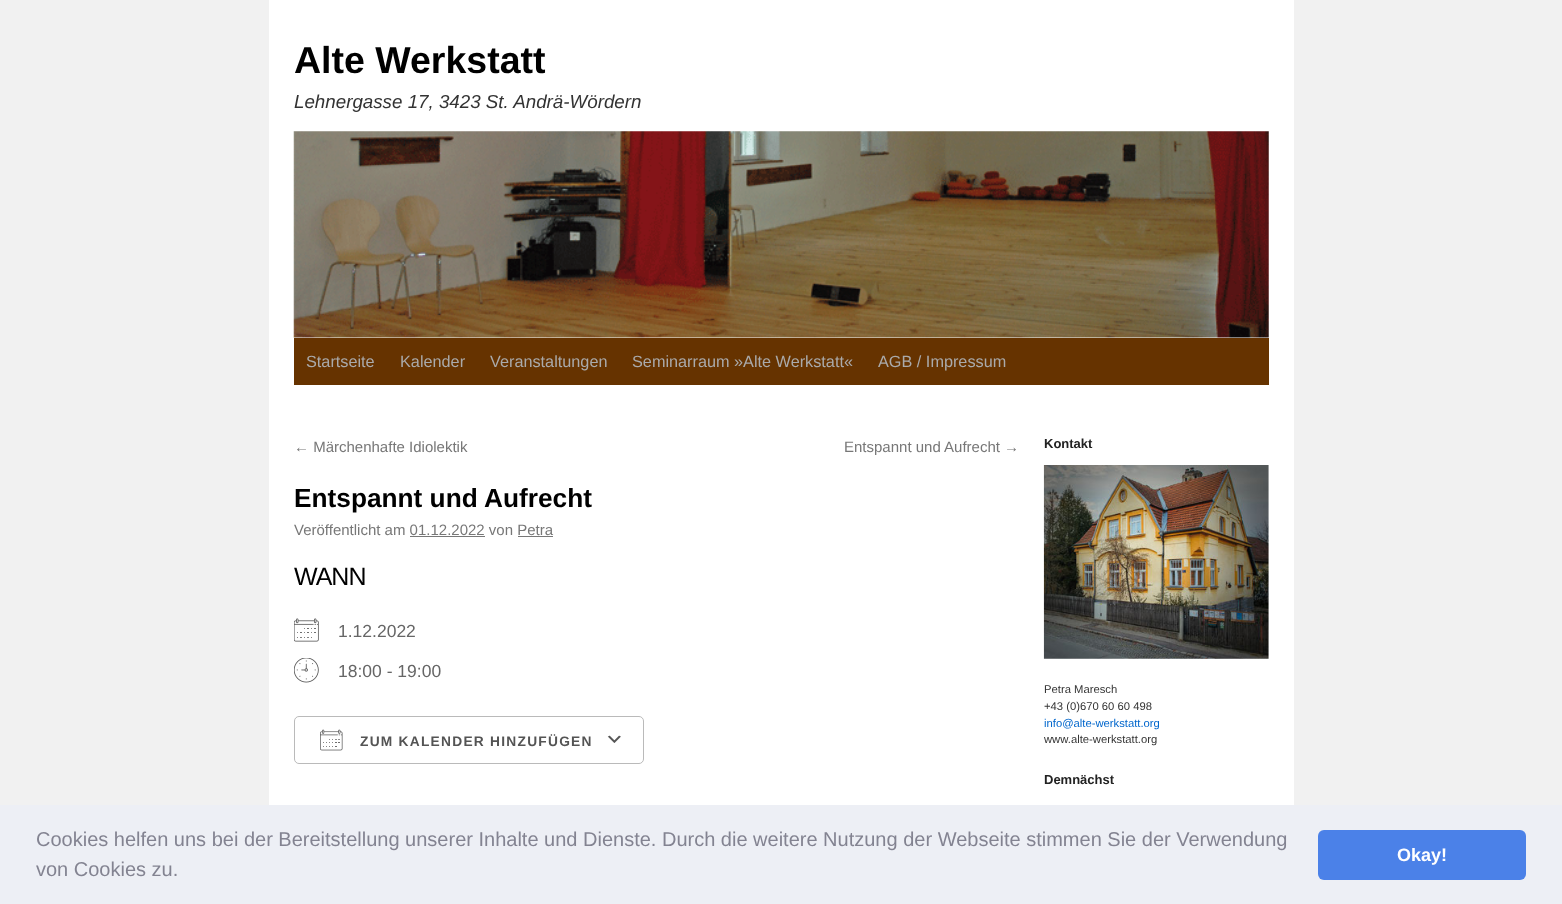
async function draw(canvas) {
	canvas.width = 1562;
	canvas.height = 904;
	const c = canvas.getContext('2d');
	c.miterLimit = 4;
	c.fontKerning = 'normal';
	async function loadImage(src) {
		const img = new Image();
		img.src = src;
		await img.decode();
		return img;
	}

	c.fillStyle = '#f1f1f1';
	c.fillRect(0, 0, 1562, 904);
	c.fillStyle = '#fff';
	c.fillRect(269, 0, 1025, 805);
	c.font = 'bold 37.5px Liberation Sans';
	c.fillStyle = '#000';
	c.fillText('Alte Werkstatt', 294, 73);
	c.font = 'italic 18.75px Liberation Sans';
	c.fillStyle = '#333';
	c.fillText('Lehnergasse 17, 3423 St. Andrä-Wördern', 294, 108);
	c.drawImage(await loadImage('img1.png'), 293, 131, 976, 207);
	c.fillStyle = '#630';
	c.fillRect(294, 338, 975, 47);
	c.font = '16.25px Liberation Sans';
	c.fillStyle = '#aaa';
	for (const [text, x, y] of [
		['Startseite', 306, 367],
		['Kalender', 400, 367],
		['Veranstaltungen', 490, 367],
		['Seminarraum »Alte Werkstatt«', 632, 367],
		['AGB / Impressum', 878, 367],
	]) {
		c.fillText(text, x, y);
	}
	c.font = '15px Liberation Sans';
	c.fillStyle = '#777';
	c.fillText('← Märchenhafte Idiolektik', 294, 452);
	c.fillText('Entspannt und Aufrecht →', 844, 452);
	c.font = 'bold 26.25px Liberation Sans';
	c.fillStyle = '#000';
	c.fillText('Entspannt und Aufrecht', 294, 507);
	c.font = '15px Liberation Sans';
	c.fillStyle = '#777';
	c.fillText('Veröffentlicht am 01.12.2022 von Petra', 294, 535);
	c.fillRect(410, 536, 75, 1);
	c.fillRect(518, 536, 35, 1);
	c.letterSpacing = '-1px';
	c.font = '25px Liberation Sans';
	c.fillStyle = '#000';
	c.fillText('WANN', 294, 585);
	c.drawImage(await loadImage('img2.png'), 294, 618, 25, 24);
	c.letterSpacing = '0px';
	c.font = '17.5px Liberation Sans';
	c.fillStyle = '#666';
	c.fillText('1.12.2022', 338, 637);
	c.drawImage(await loadImage('img3.png'), 294, 658, 25, 25);
	c.fillText('18:00 - 19:00', 338, 677);
	c.drawImage(await loadImage('img4.png'), 607, 735, 14, 8);
	c.beginPath();
	c.roundRect(294.5, 716.5, 349, 47, 4.5);
	c.strokeStyle = '#bababa';
	c.stroke();
	c.drawImage(await loadImage('img5.png'), 320, 729, 23, 22);
	c.letterSpacing = '1.25px';
	c.font = 'bold 13.75px Liberation Sans';
	c.fillStyle = '#545454';
	c.fillText('ZUM KALENDER HINZUFÜGEN', 360, 746);
	c.letterSpacing = '0px';
	c.font = 'bold 13px Liberation Sans';
	c.fillStyle = '#222';
	c.fillText('Kontakt', 1044, 448);
	c.drawImage(await loadImage('img6.png'), 1043, 465, 226, 194);
	c.font = '11.25px Liberation Sans';
	c.fillStyle = '#333';
	c.fillText('Petra Maresch', 1044, 693);
	c.fillText('+43 (0)670 60 60 498', 1044, 710);
	c.fillStyle = '#06c';
	c.fillText('info@alte-werkstatt.org', 1044, 727);
	c.fillStyle = '#333';
	c.fillText('www.alte-werkstatt.org', 1044, 743);
	c.font = 'bold 13px Liberation Sans';
	c.fillStyle = '#222';
	c.fillText('Demnächst', 1044, 784);
	c.fillStyle = '#edeff5';
	c.fillRect(0, 805, 1562, 99);
	c.font = '20px Liberation Sans';
	c.fillStyle = '#838391';
	c.fillText('Cookies helfen uns bei der Bereitstellung unserer Inhalte und Dienste. Durch die weitere Nutzung der Webseite stimmen Sie der Verwendung', 36, 846);
	c.fillText('von Cookies zu.', 36, 876);
	c.fillStyle = '#4b81e8';
	c.beginPath();
	c.roundRect(1318, 830, 208, 50, 6);
	c.fill();
	c.font = 'bold 18px Liberation Sans';
	c.fillStyle = '#fff';
	c.fillText('Okay!', 1397, 861);
}

draw(document.querySelector('canvas'));
